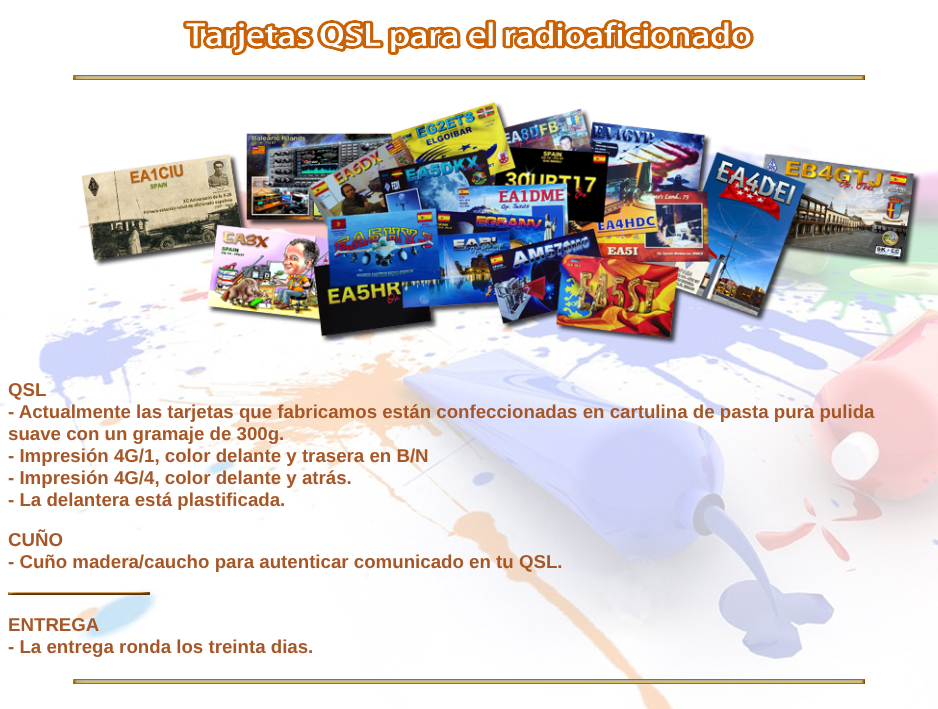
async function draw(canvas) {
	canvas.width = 938;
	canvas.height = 709;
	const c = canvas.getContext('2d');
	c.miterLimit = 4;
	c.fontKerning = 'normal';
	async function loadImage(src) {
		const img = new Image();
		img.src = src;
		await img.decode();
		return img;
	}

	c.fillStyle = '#fff';
	c.fillRect(0, 0, 938, 709);
	c.drawImage(await loadImage('img1.png'), 0, 0, 938, 709);
	c.drawImage(await loadImage('img2.png'), 183, 19, 571, 37);
	c.drawImage(await loadImage('img3.png'), 73, 75, 792, 5);
	c.drawImage(await loadImage('img4.png'), 81, 101, 840, 244);
	c.font = 'bold 18.7px Liberation Sans';
	c.fillStyle = '#a75727';
	for (const [text, x, y] of [
		['QSL', 8, 396],
		['- Actualmente las tarjetas que fabricamos están confeccionadas en cartulina de pasta pura pulida', 8, 418],
		['suave con un gramaje de 300g.', 8, 440],
		['- Impresión 4G/1, color delante y trasera en B/N', 8, 462],
		['- Impresión 4G/4, color delante y atrás.', 8, 484],
		['- La delantera está plastificada.', 8, 506],
		['CUÑO', 8, 546],
		['- Cuño madera/caucho para autenticar comunicado en tu QSL.', 8, 568],
	]) {
		c.fillText(text, x, y);
	}
	c.drawImage(await loadImage('img5.png'), 8, 592, 142, 3);
	c.fillText('ENTREGA', 8, 631);
	c.fillText('- La entrega ronda los treinta dias.', 8, 653);
	c.drawImage(await loadImage('img3.png'), 73, 679, 792, 5);
}

draw(document.querySelector('canvas'));
